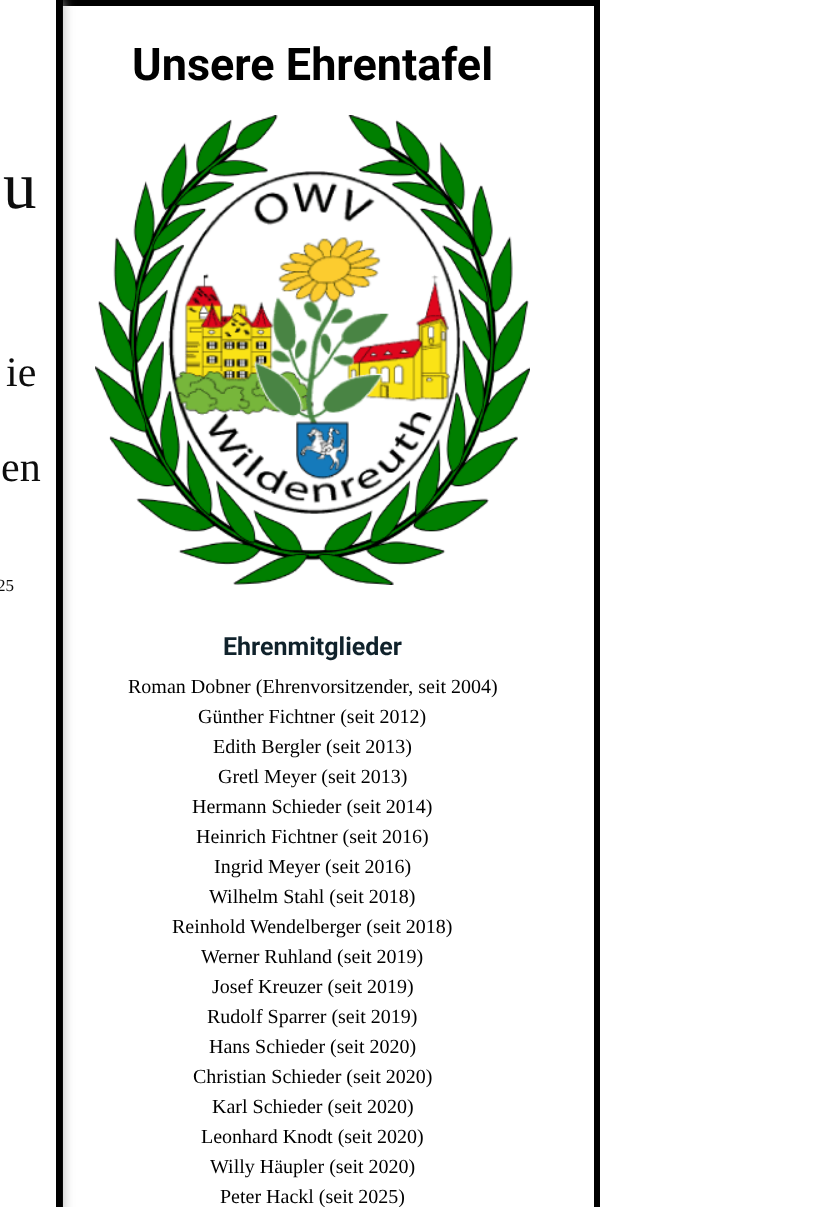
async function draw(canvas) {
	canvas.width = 835;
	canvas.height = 1207;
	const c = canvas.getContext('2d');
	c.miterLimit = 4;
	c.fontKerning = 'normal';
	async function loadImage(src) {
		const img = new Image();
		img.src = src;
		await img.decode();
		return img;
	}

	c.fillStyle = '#fff';
	c.fillRect(0, 0, 835, 1207);
	c.strokeStyle = '#000';
	c.lineWidth = 6;
	c.strokeRect(59, 3, 538, 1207);
	c.save();
	c.beginPath();
	c.moveTo(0, 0);
	c.lineTo(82, 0);
	c.lineTo(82, 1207);
	c.lineTo(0, 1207);
	c.closePath();
	c.moveTo(-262, 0);
	c.lineTo(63, 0);
	c.lineTo(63, 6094);
	c.lineTo(-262, 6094);
	c.closePath();
	c.clip('evenodd');
	c.fillStyle = '#b5b5b5f2';
	c.filter = 'blur(6px)';
	c.beginPath();
	c.rect(-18, 0, 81, 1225);
	c.fill();
	c.filter = 'none';
	c.restore();
	c.fillStyle = '#000000f2';
	c.fillRect(62, 0, 1, 1207);
	c.font = '67px Liberation Serif';
	c.fillStyle = '#0d0d0d';
	c.fillText('u', 3, 208);
	c.font = '42px Liberation Serif';
	c.fillText('ie', 6, 386);
	c.fillText('en', 1, 481);
	c.font = '17px Liberation Serif';
	c.fillText('25', -3, 591);
	c.font = 'bold 45px Roboto';
	c.fillStyle = '#000';
	c.fillText('Unsere Ehrentafel', 132, 80);
	c.drawImage(await loadImage('img1.png'), 95, 115, 435, 470);
	c.font = 'bold 25px Roboto';
	c.fillStyle = '#10222b';
	c.fillText('Ehrenmitglieder', 223, 655);
	c.font = '20px Liberation Serif';
	c.fillStyle = '#000';
	for (const [text, x, y] of [
		['Roman Dobner (Ehrenvorsitzender, seit 2004)', 128, 693],
		['Günther Fichtner (seit 2012)', 198, 723],
		['Edith Bergler (seit 2013)', 213, 753],
		['Gretl Meyer (seit 2013)', 218, 783],
		['Hermann Schieder (seit 2014)', 192, 813],
		['Heinrich Fichtner (seit 2016)', 196, 843],
		['Ingrid Meyer (seit 2016)', 214, 873],
		['Wilhelm Stahl (seit 2018)', 209, 903],
		['Reinhold Wendelberger (seit 2018)', 172, 933],
		['Werner Ruhland (seit 2019)', 201, 963],
		['Josef Kreuzer (seit 2019)', 212, 993],
		['Rudolf Sparrer (seit 2019)', 207, 1023],
		['Hans Schieder (seit 2020)', 209, 1053],
		['Christian Schieder (seit 2020)', 193, 1083],
		['Karl Schieder (seit 2020)', 212, 1113],
		['Leonhard Knodt (seit 2020)', 201, 1143],
		['Willy Häupler (seit 2020)', 210, 1173],
		['Peter Hackl (seit 2025)', 220, 1203],
	]) {
		c.fillText(text, x, y);
	}
}

draw(document.querySelector('canvas'));
